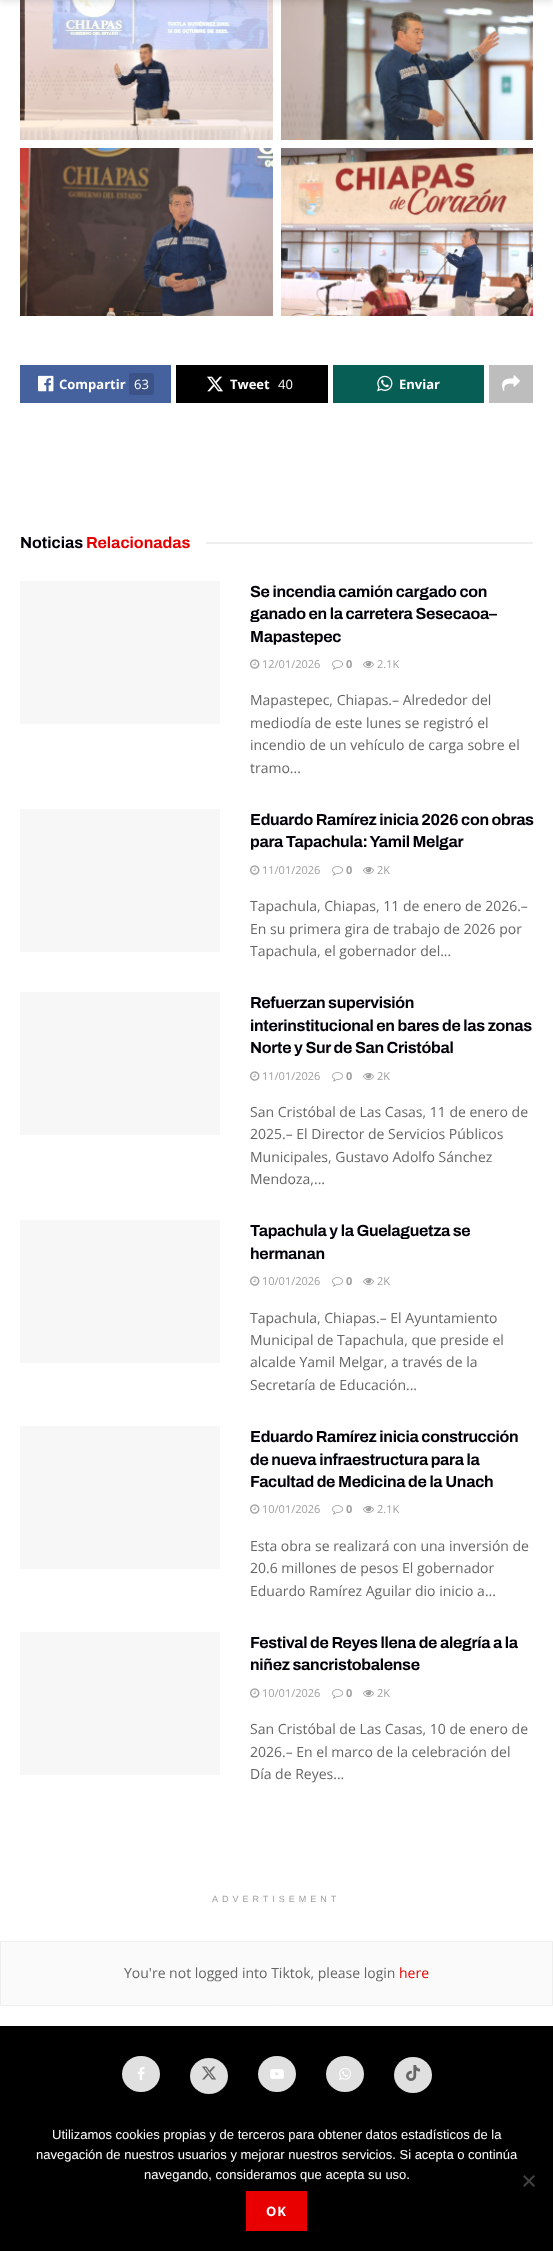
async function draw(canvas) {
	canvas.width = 553;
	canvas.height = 2251;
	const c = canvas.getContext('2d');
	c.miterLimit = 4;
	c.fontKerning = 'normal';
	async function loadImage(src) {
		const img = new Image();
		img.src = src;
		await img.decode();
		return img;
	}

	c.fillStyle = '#fff';
	c.fillRect(0, 0, 553, 2251);
	c.drawImage(await loadImage('img1.png'), 20, 0, 253, 140);
	c.drawImage(await loadImage('img2.png'), 281, 0, 252, 140);
	c.fillStyle = '#0000001a';
	c.filter = 'blur(3px)';
	c.beginPath();
	c.rect(0, -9, 553, 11);
	c.fill();
	c.filter = 'none';
	c.drawImage(await loadImage('img3.png'), 20, 148, 253, 168);
	c.drawImage(await loadImage('img4.png'), 281, 148, 252, 168);
	c.fillStyle = '#45629f';
	c.fillRect(20, 365, 151, 38);
	c.drawImage(await loadImage('img5.png'), 38, 375, 16, 17);
	c.font = 'bold 13px Open Sans';
	c.fillStyle = '#fff';
	c.fillText('Compartir', 59, 389);
	c.fillStyle = '#3b5387';
	c.beginPath();
	c.roundRect(129, 373, 25, 22, 2);
	c.fill();
	c.font = '13px Open Sans';
	c.fillStyle = '#fff';
	c.fillText('63', 134, 389);
	c.fillStyle = '#000';
	c.fillRect(176, 365, 152, 38);
	c.drawImage(await loadImage('img6.png'), 207, 376, 16, 16);
	c.font = 'bold 13px Open Sans';
	c.fillStyle = '#fff';
	c.fillText('Tweet', 230, 389);
	c.font = '13px Open Sans';
	c.fillText('40', 278, 389);
	c.fillStyle = '#075e54';
	c.fillRect(333, 365, 151, 38);
	c.drawImage(await loadImage('img7.png'), 377, 375, 16, 17);
	c.font = 'bold 13px Open Sans';
	c.fillStyle = '#fff';
	c.fillText('Enviar', 399, 389);
	c.fillStyle = '#bdbdbd';
	c.fillRect(489, 365, 44, 38);
	c.drawImage(await loadImage('img8.png'), 502, 375, 18, 17);
	c.font = '600 16px Archivo';
	c.fillStyle = '#02010a';
	c.fillText('Noticias', 20, 548);
	c.fillStyle = '#e80000';
	c.fillText('Relacionadas', 86, 548);
	c.fillStyle = '#eee';
	c.fillRect(206, 542, 327, 2);
	c.fillStyle = '#f7f7f7';
	c.fillRect(20, 581, 200, 143);
	c.letterSpacing = '-0.3px';
	c.fillStyle = '#02010a';
	for (const [text, x, y] of [
		['Se incendia camión cargado con', 250, 597],
		['ganado en la carretera Sesecaoa–', 250, 619],
		['Mapastepec', 250, 642],
	]) {
		c.fillText(text, x, y);
	}
	c.drawImage(await loadImage('img9.png'), 250, 659, 10, 10);
	c.letterSpacing = '0px';
	c.font = '11px Open Sans';
	c.fillStyle = '#a0a0a0';
	c.fillText('12/01/2026', 262, 668);
	c.drawImage(await loadImage('img10.png'), 332, 660, 11, 10);
	c.font = 'bold 11px Open Sans';
	c.fillText('0', 346, 668);
	c.drawImage(await loadImage('img11.png'), 363, 661, 11, 7);
	c.font = '11px Open Sans';
	c.fillText('2.1K', 377, 668);
	c.font = '14px Open Sans';
	c.fillStyle = '#666';
	for (const [text, x, y] of [
		['Mapastepec, Chiapas.– Alrededor del', 250, 705],
		['mediodía de este lunes se registró el', 250, 728],
		['incendio de un vehículo de carga sobre el', 250, 750],
		['tramo...', 250, 773],
	]) {
		c.fillText(text, x, y);
	}
	c.fillStyle = '#f7f7f7';
	c.fillRect(20, 809, 200, 143);
	c.letterSpacing = '-0.3px';
	c.font = '600 16px Archivo';
	c.fillStyle = '#02010a';
	c.fillText('Eduardo Ramírez inicia 2026 con obras', 250, 825);
	c.fillText('para Tapachula: Yamil Melgar', 250, 847);
	c.drawImage(await loadImage('img9.png'), 250, 865, 10, 10);
	c.letterSpacing = '0px';
	c.font = '11px Open Sans';
	c.fillStyle = '#a0a0a0';
	c.fillText('11/01/2026', 262, 874);
	c.drawImage(await loadImage('img10.png'), 332, 866, 11, 10);
	c.font = 'bold 11px Open Sans';
	c.fillText('0', 346, 874);
	c.drawImage(await loadImage('img11.png'), 363, 867, 11, 7);
	c.font = '11px Open Sans';
	c.fillText('2K', 377, 874);
	c.font = '14px Open Sans';
	c.fillStyle = '#666';
	for (const [text, x, y] of [
		['Tapachula, Chiapas, 11 de enero de 2026.–', 250, 911],
		['En su primera gira de trabajo de 2026 por', 250, 934],
		['Tapachula, el gobernador del...', 250, 956],
	]) {
		c.fillText(text, x, y);
	}
	c.fillStyle = '#f7f7f7';
	c.fillRect(20, 992, 200, 143);
	c.letterSpacing = '-0.3px';
	c.font = '600 16px Archivo';
	c.fillStyle = '#02010a';
	for (const [text, x, y] of [
		['Refuerzan supervisión', 250, 1008],
		['interinstitucional en bares de las zonas', 250, 1031],
		['Norte y Sur de San Cristóbal', 250, 1053],
	]) {
		c.fillText(text, x, y);
	}
	c.drawImage(await loadImage('img9.png'), 250, 1071, 10, 10);
	c.letterSpacing = '0px';
	c.font = '11px Open Sans';
	c.fillStyle = '#a0a0a0';
	c.fillText('11/01/2026', 262, 1080);
	c.drawImage(await loadImage('img10.png'), 332, 1072, 11, 10);
	c.font = 'bold 11px Open Sans';
	c.fillText('0', 346, 1080);
	c.drawImage(await loadImage('img11.png'), 363, 1073, 11, 7);
	c.font = '11px Open Sans';
	c.fillText('2K', 377, 1080);
	c.font = '14px Open Sans';
	c.fillStyle = '#666';
	for (const [text, x, y] of [
		['San Cristóbal de Las Casas, 11 de enero de', 250, 1117],
		['2025.– El Director de Servicios Públicos', 250, 1139],
		['Municipales, Gustavo Adolfo Sánchez', 250, 1162],
		['Mendoza,...', 250, 1184],
	]) {
		c.fillText(text, x, y);
	}
	c.fillStyle = '#f7f7f7';
	c.fillRect(20, 1220, 200, 143);
	c.letterSpacing = '-0.3px';
	c.font = '600 16px Archivo';
	c.fillStyle = '#02010a';
	c.fillText('Tapachula y la Guelaguetza se', 250, 1236);
	c.fillText('hermanan', 250, 1259);
	c.drawImage(await loadImage('img9.png'), 250, 1276, 10, 10);
	c.letterSpacing = '0px';
	c.font = '11px Open Sans';
	c.fillStyle = '#a0a0a0';
	c.fillText('10/01/2026', 262, 1285);
	c.drawImage(await loadImage('img10.png'), 332, 1277, 11, 10);
	c.font = 'bold 11px Open Sans';
	c.fillText('0', 346, 1285);
	c.drawImage(await loadImage('img11.png'), 363, 1278, 11, 7);
	c.font = '11px Open Sans';
	c.fillText('2K', 377, 1285);
	c.font = '14px Open Sans';
	c.fillStyle = '#666';
	for (const [text, x, y] of [
		['Tapachula, Chiapas.– El Ayuntamiento', 250, 1323],
		['Municipal de Tapachula, que preside el', 250, 1345],
		['alcalde Yamil Melgar, a través de la', 250, 1367],
		['Secretaría de Educación...', 250, 1390],
	]) {
		c.fillText(text, x, y);
	}
	c.fillStyle = '#f7f7f7';
	c.fillRect(20, 1426, 200, 143);
	c.letterSpacing = '-0.3px';
	c.font = '600 16px Archivo';
	c.fillStyle = '#02010a';
	for (const [text, x, y] of [
		['Eduardo Ramírez inicia construcción', 250, 1442],
		['de nueva infraestructura para la', 250, 1465],
		['Facultad de Medicina de la Unach', 250, 1487],
	]) {
		c.fillText(text, x, y);
	}
	c.drawImage(await loadImage('img9.png'), 250, 1504, 10, 10);
	c.letterSpacing = '0px';
	c.font = '11px Open Sans';
	c.fillStyle = '#a0a0a0';
	c.fillText('10/01/2026', 262, 1513);
	c.drawImage(await loadImage('img10.png'), 332, 1505, 11, 10);
	c.font = 'bold 11px Open Sans';
	c.fillText('0', 346, 1513);
	c.drawImage(await loadImage('img11.png'), 363, 1506, 11, 7);
	c.font = '11px Open Sans';
	c.fillText('2.1K', 377, 1513);
	c.font = '14px Open Sans';
	c.fillStyle = '#666';
	for (const [text, x, y] of [
		['Esta obra se realizará con una inversión de', 250, 1551],
		['20.6 millones de pesos El gobernador', 250, 1573],
		['Eduardo Ramírez Aguilar dio inicio a...', 250, 1596],
	]) {
		c.fillText(text, x, y);
	}
	c.fillStyle = '#f7f7f7';
	c.fillRect(20, 1632, 200, 143);
	c.letterSpacing = '-0.3px';
	c.font = '600 16px Archivo';
	c.fillStyle = '#02010a';
	c.fillText('Festival de Reyes llena de alegría a la', 250, 1648);
	c.fillText('niñez sancristobalense', 250, 1670);
	c.drawImage(await loadImage('img9.png'), 250, 1688, 10, 10);
	c.letterSpacing = '0px';
	c.font = '11px Open Sans';
	c.fillStyle = '#a0a0a0';
	c.fillText('10/01/2026', 262, 1697);
	c.drawImage(await loadImage('img10.png'), 332, 1689, 11, 10);
	c.font = 'bold 11px Open Sans';
	c.fillText('0', 346, 1697);
	c.drawImage(await loadImage('img11.png'), 363, 1690, 11, 7);
	c.font = '11px Open Sans';
	c.fillText('2K', 377, 1697);
	c.font = '14px Open Sans';
	c.fillStyle = '#666';
	for (const [text, x, y] of [
		['San Cristóbal de Las Casas, 10 de enero de', 250, 1734],
		['2026.– En el marco de la celebración del', 250, 1757],
		['Día de Reyes...', 250, 1779],
	]) {
		c.fillText(text, x, y);
	}
	c.letterSpacing = '4px';
	c.font = '9px Liberation Sans';
	c.fillStyle = '#a0a0a0';
	c.fillText('ADVERTISEMENT', 212, 1902);
	c.fillStyle = '#fafafa';
	c.beginPath();
	c.rect(0.5, 1941.5, 552, 64);
	c.fill();
	c.strokeStyle = '#eee';
	c.stroke();
	c.letterSpacing = '0px';
	c.font = '14px Open Sans';
	c.fillStyle = '#666';
	c.fillText('You\'re not logged into Tiktok, please login', 124, 1978);
	c.fillStyle = '#e80000';
	c.fillText('here', 399, 1978);
	c.fillStyle = '#000';
	c.fillRect(0, 2026, 553, 225);
	c.fillStyle = '#e0e0e0';
	c.beginPath();
	c.ellipse(141, 2074, 19, 18, 0, 0, 2 * Math.PI);
	c.fill();
	c.drawImage(await loadImage('img12.png'), 137, 2067, 8, 13);
	c.beginPath();
	c.ellipse(209, 2076, 19, 18, 0, 0, 2 * Math.PI);
	c.fill();
	c.drawImage(await loadImage('img13.png'), 202, 2066, 15, 14);
	c.beginPath();
	c.ellipse(277, 2074, 19, 18, 0, 0, 2 * Math.PI);
	c.fill();
	c.drawImage(await loadImage('img14.png'), 270, 2069, 14, 10);
	c.beginPath();
	c.ellipse(345, 2074, 19, 18, 0, 0, 2 * Math.PI);
	c.fill();
	c.drawImage(await loadImage('img15.png'), 339, 2068, 12, 12);
	c.beginPath();
	c.ellipse(413, 2075, 19, 18, 0, 0, 2 * Math.PI);
	c.fill();
	c.drawImage(await loadImage('img16.png'), 406, 2065, 14, 16);
	c.font = '13px Liberation Sans';
	c.fillStyle = '#fff';
	for (const [text, x, y] of [
		['Utilizamos cookies propias y de terceros para obtener datos estadísticos de la', 52, 2139],
		['navegación de nuestros usuarios y mejorar nuestros servicios. Si acepta o continúa', 36, 2159],
		['navegando, consideramos que acepta su uso.', 144, 2179],
	]) {
		c.fillText(text, x, y);
	}
	c.fillStyle = '#404040';
	c.beginPath();
	c.moveTo(533.5, 2175);
	c.lineTo(535, 2176.5);
	c.lineTo(524.5, 2187);
	c.lineTo(523, 2185.5);
	c.closePath();
	c.fill();
	c.beginPath();
	c.moveTo(523, 2176.5);
	c.lineTo(524.5, 2175);
	c.lineTo(535, 2185.5);
	c.lineTo(533.5, 2187);
	c.closePath();
	c.fill();
	c.fillStyle = '#e80000';
	c.fillRect(246, 2191, 61, 40);
	c.letterSpacing = '1px';
	c.font = 'bold 13px Open Sans';
	c.fillStyle = '#fff';
	c.fillText('OK', 266, 2216);
}

draw(document.querySelector('canvas'));
